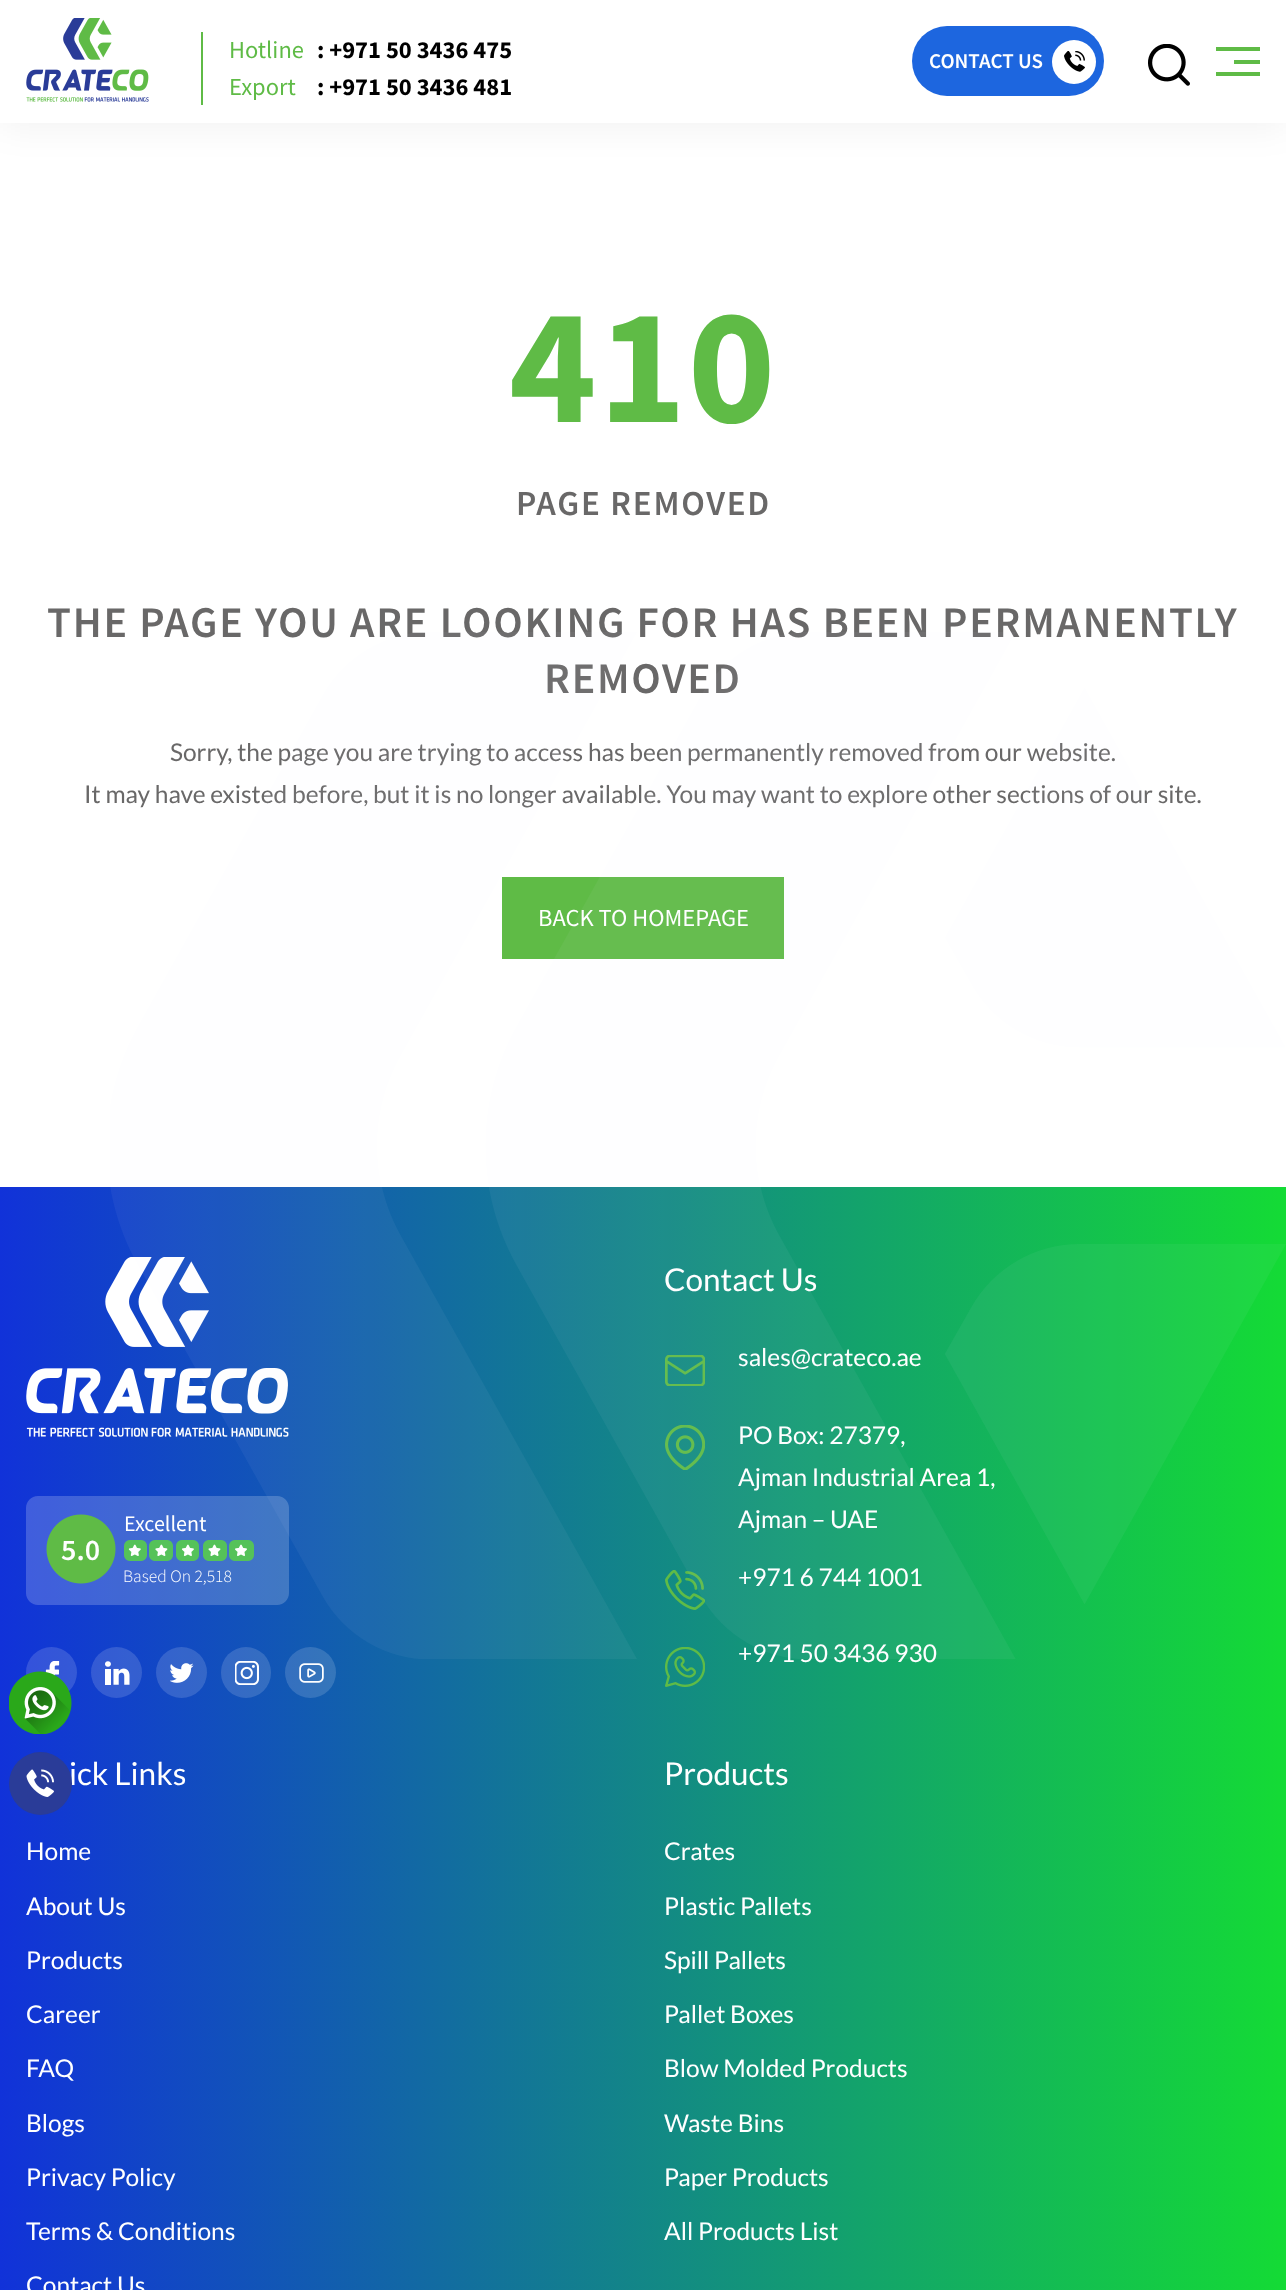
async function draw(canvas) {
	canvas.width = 1286;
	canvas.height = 2290;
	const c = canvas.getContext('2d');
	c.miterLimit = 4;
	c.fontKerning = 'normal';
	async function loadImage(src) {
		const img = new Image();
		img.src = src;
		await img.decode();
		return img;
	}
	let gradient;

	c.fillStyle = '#fff';
	c.fillRect(0, 0, 1286, 2290);
	c.fillStyle = '#0000000d';
	c.filter = 'blur(17.5px)';
	c.beginPath();
	c.rect(0, 5, 1286, 123);
	c.fill();
	c.filter = 'none';
	c.fillStyle = '#fff';
	c.fillRect(0, 0, 1286, 123);
	c.drawImage(await loadImage('img1.png'), 26, 18, 123, 84);
	c.fillStyle = '#5fbb46';
	c.fillRect(201, 32, 2, 73);
	c.font = '24.5px Source Sans Pro';
	c.fillText('Hotline', 229, 58);
	c.font = 'bold 24.5px Source Sans Pro';
	c.fillStyle = '#000';
	c.fillText(': +971 50 3436 475', 317, 58);
	c.font = '24.5px Source Sans Pro';
	c.fillStyle = '#5fbb46';
	c.fillText('Export', 229, 95);
	c.font = 'bold 24.5px Source Sans Pro';
	c.fillStyle = '#000';
	c.fillText(': +971 50 3436 481', 317, 95);
	c.fillStyle = '#1d66df';
	c.beginPath();
	c.roundRect(912, 26, 192, 70, 35);
	c.fill();
	c.font = '600 21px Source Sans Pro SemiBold';
	c.fillStyle = '#fff';
	c.fillText('CONTACT US', 929, 68);
	c.beginPath();
	c.arc(1074, 62, 22, 0, 2 * Math.PI);
	c.fill();
	c.drawImage(await loadImage('img2.png'), 1064, 51, 21, 21);
	c.drawImage(await loadImage('img3.png'), 1148, 44, 42, 42);
	for (const [x, y, w, h, color] of [
		[1216, 47, 44, 4, '#5fbb46'],
		[1234, 60, 26, 4, '#5fbb46'],
		[1216, 72, 44, 4, '#5fbb46'],
	]) {
		c.fillStyle = color;
		c.fillRect(x, y, w, h);
	}
	c.letterSpacing = '1.75px';
	c.font = 'bold 166px Source Sans Pro';
	c.fillText('410', 509, 422);
	c.font = '600 35px Source Sans Pro SemiBold';
	c.fillStyle = '#696868';
	c.fillText('PAGE REMOVED', 516, 515);
	c.font = '600 43.75px Source Sans Pro SemiBold';
	c.fillText('THE PAGE YOU ARE LOOKING FOR HAS BEEN PERMANENTLY', 47, 637);
	c.fillText('REMOVED', 544, 693);
	c.letterSpacing = '0px';
	c.font = '24.5px Lato';
	c.fillText('Sorry, the page you are trying to access has been permanently removed from our website.', 170, 761);
	c.fillText('It may have existed before, but it is no longer available. You may want to explore other sections of our site.', 84, 803);
	c.fillStyle = '#5fbb46';
	c.fillRect(502, 877, 282, 82);
	c.font = '24.5px Source Sans Pro';
	c.fillStyle = '#fff';
	c.fillText('BACK TO HOMEPAGE', 538, 926);
	gradient = c.createLinearGradient(1286, 1872, 0, 1872);
	gradient.addColorStop(0, '#14db35');
	gradient.addColorStop(1, '#1132d9');
	c.fillStyle = gradient;
	c.fillRect(0, 1187, 1286, 1103);
	c.drawImage(await loadImage('img5.png'), 26, 1257, 263, 180);
	c.drawImage(await loadImage('img6.png'), 26, 1496, 263, 109);
	c.font = '22px Source Sans Pro';
	c.fillStyle = '#fff';
	c.fillText('Excellent', 124, 1531);
	c.font = '300 17.5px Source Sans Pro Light';
	c.fillText('Based On 2,518', 123, 1582);
	c.fillStyle = '#ffffff26';
	c.beginPath();
	c.arc(116.5, 1672.5, 25.5, 0, 2 * Math.PI);
	c.fill();
	c.beginPath();
	c.arc(181.5, 1672.5, 25.5, 0, 2 * Math.PI);
	c.fill();
	c.beginPath();
	c.roundRect(221, 1647, 50, 51, 25);
	c.fill();
	c.beginPath();
	c.arc(310.5, 1672.5, 25.5, 0, 2 * Math.PI);
	c.fill();
	c.font = '31.5px Lato';
	c.fillStyle = '#fff';
	c.fillText('Contact Us', 664, 1291);
	c.drawImage(await loadImage('img12.png'), 665, 1355, 40, 31);
	c.font = '24.5px Lato';
	c.fillText('sales@crateco.ae', 738, 1366);
	c.drawImage(await loadImage('img13.png'), 665, 1425, 40, 45);
	for (const [text, x, y] of [
		['PO Box: 27379,', 738, 1444],
		['Ajman Industrial Area 1,', 738, 1486],
		['Ajman – UAE', 738, 1528],
	]) {
		c.fillText(text, x, y);
	}
	c.drawImage(await loadImage('img14.png'), 665, 1570, 40, 40);
	c.fillText('+971 6 744 1001', 738, 1586);
	c.drawImage(await loadImage('img15.png'), 665, 1647, 40, 40);
	c.fillText('+971 50 3436 930', 738, 1662);
	c.drawImage(await loadImage('img4.png'), 110, 632, 1176, 1027);
	c.font = '600 30px Source Sans Pro SemiBold';
	c.fillText('5.0', 61, 1560);
	c.fillStyle = '#ffffff26';
	c.beginPath();
	c.arc(51.5, 1672.5, 25.5, 0, 2 * Math.PI);
	c.fill();
	c.drawImage(await loadImage('img7.png'), 45, 1661, 15, 15);
	c.drawImage(await loadImage('img8.png'), 105, 1661, 25, 24);
	c.drawImage(await loadImage('img9.png'), 170, 1663, 24, 20);
	c.drawImage(await loadImage('img10.png'), 235, 1661, 24, 24);
	c.drawImage(await loadImage('img11.png'), 299, 1663, 25, 20);
	c.font = '31.5px Lato';
	c.fillStyle = '#fff';
	c.fillText('ick Links', 69, 1785);
	c.font = '24.5px Lato';
	for (const [text, x, y] of [
		['Home', 26, 1860],
		['About Us', 26, 1915],
		['Products', 26, 1969],
		['Career', 26, 2023],
		['FAQ', 26, 2077],
		['Blogs', 26, 2132],
		['Privacy Policy', 26, 2186],
		['Terms & Conditions', 26, 2240],
		['Contact Us', 26, 2294],
	]) {
		c.fillText(text, x, y);
	}
	c.font = '31.5px Lato';
	c.fillText('Products', 664, 1785);
	c.font = '24.5px Lato';
	for (const [text, x, y] of [
		['Crates', 664, 1860],
		['Plastic Pallets', 664, 1915],
		['Spill Pallets', 664, 1969],
		['Pallet Boxes', 664, 2023],
		['Blow Molded Products', 664, 2077],
		['Waste Bins', 664, 2132],
		['Paper Products', 664, 2186],
		['All Products List', 664, 2240],
	]) {
		c.fillText(text, x, y);
	}
	c.drawImage(await loadImage('img16.png'), 9, 1671, 63, 63);
	c.fillStyle = '#2a3c98';
	c.beginPath();
	c.arc(40.5, 1783.5, 31.5, 0, 2 * Math.PI);
	c.fill();
	c.drawImage(await loadImage('img17.png'), 26, 1769, 28, 28);
}

draw(document.querySelector('canvas'));
